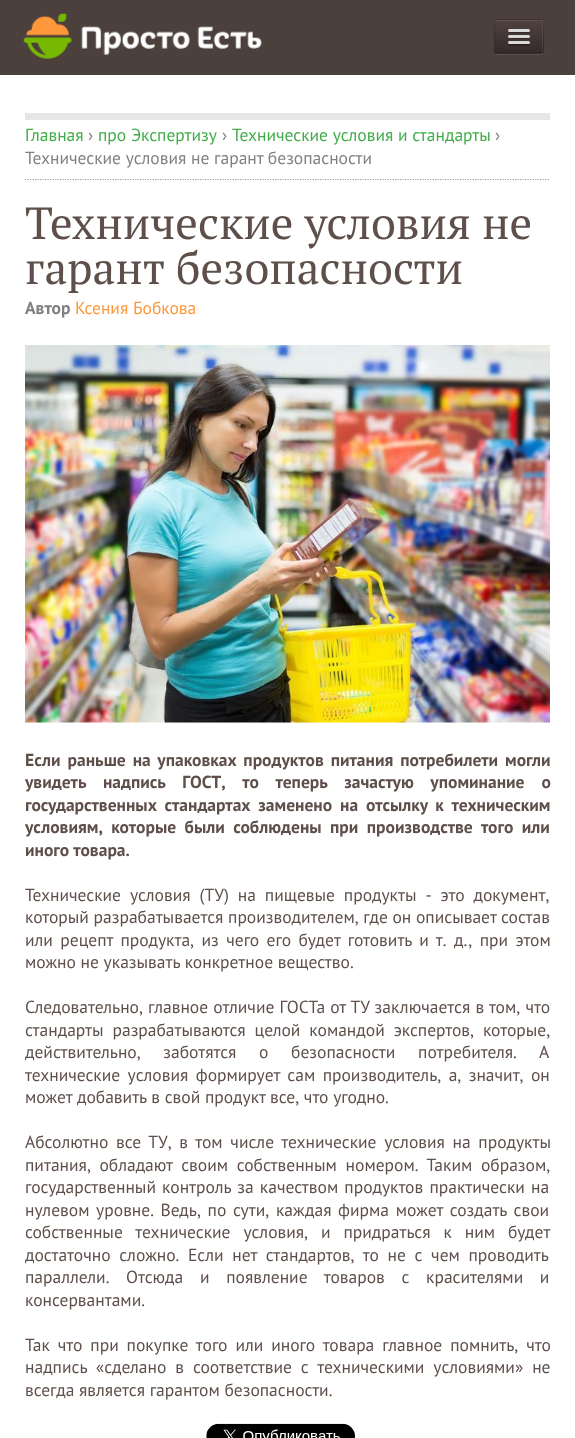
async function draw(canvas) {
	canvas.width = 575;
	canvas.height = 1438;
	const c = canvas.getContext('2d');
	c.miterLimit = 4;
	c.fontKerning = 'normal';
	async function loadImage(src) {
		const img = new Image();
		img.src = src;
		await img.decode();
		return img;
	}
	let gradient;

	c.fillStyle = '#fff';
	c.fillRect(0, 0, 575, 1438);
	c.fillStyle = '#4c403c';
	c.fillRect(0, 0, 575, 75);
	c.drawImage(await loadImage('img1.png'), 23, 13, 239, 46);
	c.fillStyle = '#594e4b';
	c.beginPath();
	c.moveTo(494, 52);
	c.bezierCurveTo(494, 57, 503, 55, 504, 55);
	c.lineTo(534, 55);
	c.bezierCurveTo(547, 55, 544, 56, 544, 42);
	c.lineTo(544, 21);
	c.lineTo(544, 51);
	c.bezierCurveTo(544, 53, 543, 54, 541, 54);
	c.lineTo(496, 54);
	c.bezierCurveTo(495, 54, 494, 53, 494, 52);
	c.closePath();
	c.fill();
	c.fillStyle = '#453938';
	c.beginPath();
	c.roundRect(494, 19, 50, 35, 2.5);
	c.fill();
	c.save();
	c.beginPath();
	c.roundRect(494, 19, 50, 35, 2.5);
	c.clip();
	gradient = c.createLinearGradient(519, 20, 519, 53);
	gradient.addColorStop(0, '#504241');
	gradient.addColorStop(1, '#342b2a');
	c.fillStyle = gradient;
	c.fillRect(494, 20, 50, 33);
	c.restore();
	c.fillStyle = '#ffffff1a';
	c.beginPath();
	c.moveTo(496, 21);
	c.lineTo(528, 21);
	c.bezierCurveTo(545, 21, 542, 18, 542, 35);
	c.lineTo(542, 53);
	c.bezierCurveTo(543, 53, 543, 53, 543, 52);
	c.lineTo(543, 21);
	c.bezierCurveTo(543, 20, 543, 20, 542, 20);
	c.lineTo(496, 20);
	c.bezierCurveTo(495, 20, 495, 20, 495, 21);
	c.lineTo(495, 22);
	c.closePath();
	c.fill();
	c.beginPath();
	c.moveTo(542.5, 52.5);
	c.bezierCurveTo(541, 53.5, 496, 53.5, 495, 52.5);
	c.strokeStyle = '#00000040';
	c.lineWidth = 1.2;
	c.stroke();
	c.beginPath();
	c.moveTo(495, 52.5);
	c.bezierCurveTo(493.5, 51, 494.5, 39, 494.5, 36);
	c.lineTo(494.5, 26);
	c.bezierCurveTo(494.5, 17.5, 494, 19.5, 504, 19.5);
	c.lineTo(534, 19.5);
	c.bezierCurveTo(543.5, 19.5, 543, 17.5, 543, 26);
	c.lineTo(543, 36);
	c.bezierCurveTo(543, 39, 544, 51, 542.5, 52.5);
	c.strokeStyle = '#0000001a';
	c.stroke();
	c.fillStyle = '#342b2a';
	c.beginPath();
	c.moveTo(508, 31);
	c.bezierCurveTo(507.5, 33.5, 512, 33, 512.5, 33);
	c.lineTo(525.5, 33);
	c.bezierCurveTo(526, 33, 531.5, 33.5, 530, 30.5);
	c.lineTo(529, 31);
	c.closePath();
	c.fill();
	c.fillStyle = '#d9d9d9';
	c.beginPath();
	c.roundRect(508, 29, 22, 3, 1.5);
	c.fill();
	c.fillStyle = '#302827';
	c.beginPath();
	c.moveTo(508, 37.5);
	c.bezierCurveTo(507.5, 39.5, 511.5, 39, 512.5, 39);
	c.lineTo(525.5, 39);
	c.bezierCurveTo(526, 39, 531, 39.5, 530, 37);
	c.lineTo(529, 37.5);
	c.bezierCurveTo(527, 37.5, 508.5, 37.5, 508, 37.5);
	c.closePath();
	c.fill();
	c.fillStyle = '#d9d9d9';
	c.beginPath();
	c.roundRect(508, 35, 22, 3, 1.5);
	c.fill();
	c.fillStyle = '#2c2424';
	c.beginPath();
	c.moveTo(508.5, 43.5);
	c.bezierCurveTo(506.5, 46.5, 512, 46, 512.5, 46);
	c.lineTo(519, 46);
	c.bezierCurveTo(521, 46, 529, 46.5, 529.5, 45.5);
	c.bezierCurveTo(530, 44.5, 530, 44, 529.5, 43.5);
	c.bezierCurveTo(529, 44, 509.5, 44, 508.5, 43.5);
	c.closePath();
	c.fill();
	c.fillStyle = '#d9d9d9';
	c.beginPath();
	c.roundRect(508, 41, 22, 3, 1.5);
	c.fill();
	c.fillStyle = '#e6e6e6';
	c.fillRect(25, 113, 525, 7);
	c.beginPath();
	c.moveTo(25, 179.5);
	c.lineTo(550, 179.5);
	c.strokeStyle = '#999';
	c.setLineDash([1.25, 1.25]);
	c.stroke();
	c.font = '17.5px PT Sans';
	c.fillStyle = '#41ad49';
	c.fillText('Главная', 25, 141);
	c.fillStyle = '#808080';
	c.fillText('›', 88, 141);
	c.fillStyle = '#41ad49';
	c.fillText('про Экспертизу', 98, 141);
	c.fillStyle = '#808080';
	c.fillText('›', 222, 141);
	c.fillStyle = '#41ad49';
	c.fillText('Технические условия и стандарты', 232, 141);
	c.fillStyle = '#808080';
	c.fillText('›', 495, 141);
	c.fillText('Технические условия не гарант безопасности', 25, 164);
	c.font = '45px PT Serif';
	c.fillStyle = '#5e4f4a';
	c.fillText('Технические условия не', 25, 239);
	c.wordSpacing = '1px';
	c.fillText('гарант безопасности', 25, 284);
	c.wordSpacing = '0px';
	c.font = 'bold 17.5px PT Sans';
	c.fillStyle = '#808080';
	c.fillText('Автор', 25, 314);
	c.font = '17.5px PT Sans';
	c.fillStyle = '#ff983a';
	c.fillText('Ксения Бобкова', 75, 314);
	c.drawImage(await loadImage('img2.png'), 25, 345, 525, 378);
	c.wordSpacing = '2.5px';
	c.font = 'bold 17.5px PT Sans';
	c.fillStyle = '#5e4f4a';
	c.fillText('Если раньше на упаковках продуктов питания потребилети могли', 25, 766);
	c.wordSpacing = '12.5px';
	c.fillText('увидеть надпись ГОСТ, то теперь зачастую упоминание о', 25, 788);
	c.wordSpacing = '3.5px';
	c.fillText('государственных стандартах заменено на отсылку к техническим', 25, 811);
	c.wordSpacing = '4px';
	c.fillText('условиям, которые были соблюдены при производстве того или', 25, 833);
	c.wordSpacing = '0px';
	c.fillText('иного товара.', 25, 856);
	c.wordSpacing = '4.25px';
	c.font = '17.5px PT Sans';
	c.fillText('Технические условия (ТУ) на пищевые продукты - это документ,', 25, 901);
	c.wordSpacing = '0px';
	c.fillText('который разрабатывается производителем, где он описывает состав', 25, 923);
	c.wordSpacing = '2.75px';
	c.fillText('или рецепт продукта, из чего его будет готовить и т. д., при этом', 25, 946);
	c.wordSpacing = '0px';
	c.fillText('можно не указывать конкретное вещество.', 25, 968);
	c.wordSpacing = '0.5px';
	c.fillText('Следовательно, главное отличие ГОСТа от ТУ заключается в том, что', 25, 1013);
	c.wordSpacing = '4.25px';
	c.fillText('стандарты разрабатываются целой командой экспертов, которые,', 25, 1036);
	c.wordSpacing = '18px';
	c.fillText('действительно, заботятся о безопасности потребителя. А', 25, 1058);
	c.wordSpacing = '2.75px';
	c.fillText('технические условия формирует сам производитель, а, значит, он', 25, 1081);
	c.wordSpacing = '0px';
	c.fillText('может добавить в свой продукт все, что угодно.', 25, 1103);
	c.wordSpacing = '3px';
	c.fillText('Абсолютно все ТУ, в том числе технические условия на продукты', 25, 1148);
	c.wordSpacing = '4px';
	c.fillText('питания, обладают своим собственным номером. Таким образом,', 25, 1171);
	c.wordSpacing = '1.5px';
	c.fillText('государственный контроль за качеством продуктов практически на', 25, 1193);
	c.wordSpacing = '2px';
	c.fillText('нулевом уровне. Ведь, по сути, каждая фирма может создать свои', 25, 1216);
	c.wordSpacing = '8.25px';
	c.fillText('собственные технические условия, и придраться к ним будет', 25, 1238);
	c.wordSpacing = '4px';
	c.fillText('достаточно сложно. Если нет стандартов, то не с чем проводить', 25, 1261);
	c.wordSpacing = '12px';
	c.fillText('параллели. Отсюда и появление товаров с красителями и', 25, 1283);
	c.wordSpacing = '0px';
	c.fillText('консервантами.', 25, 1306);
	c.wordSpacing = '3.25px';
	c.fillText('Так что при покупке того или иного товара главное помнить, что', 25, 1351);
	c.wordSpacing = '4.25px';
	c.fillText('надпись «сделано в соответствие с техническими условиями» не', 25, 1373);
	c.wordSpacing = '0px';
	c.fillText('всегда является гарантом безопасности.', 25, 1396);
	c.drawImage(await loadImage('img3.png'), 206, 1423, 149, 15);
}

draw(document.querySelector('canvas'));
